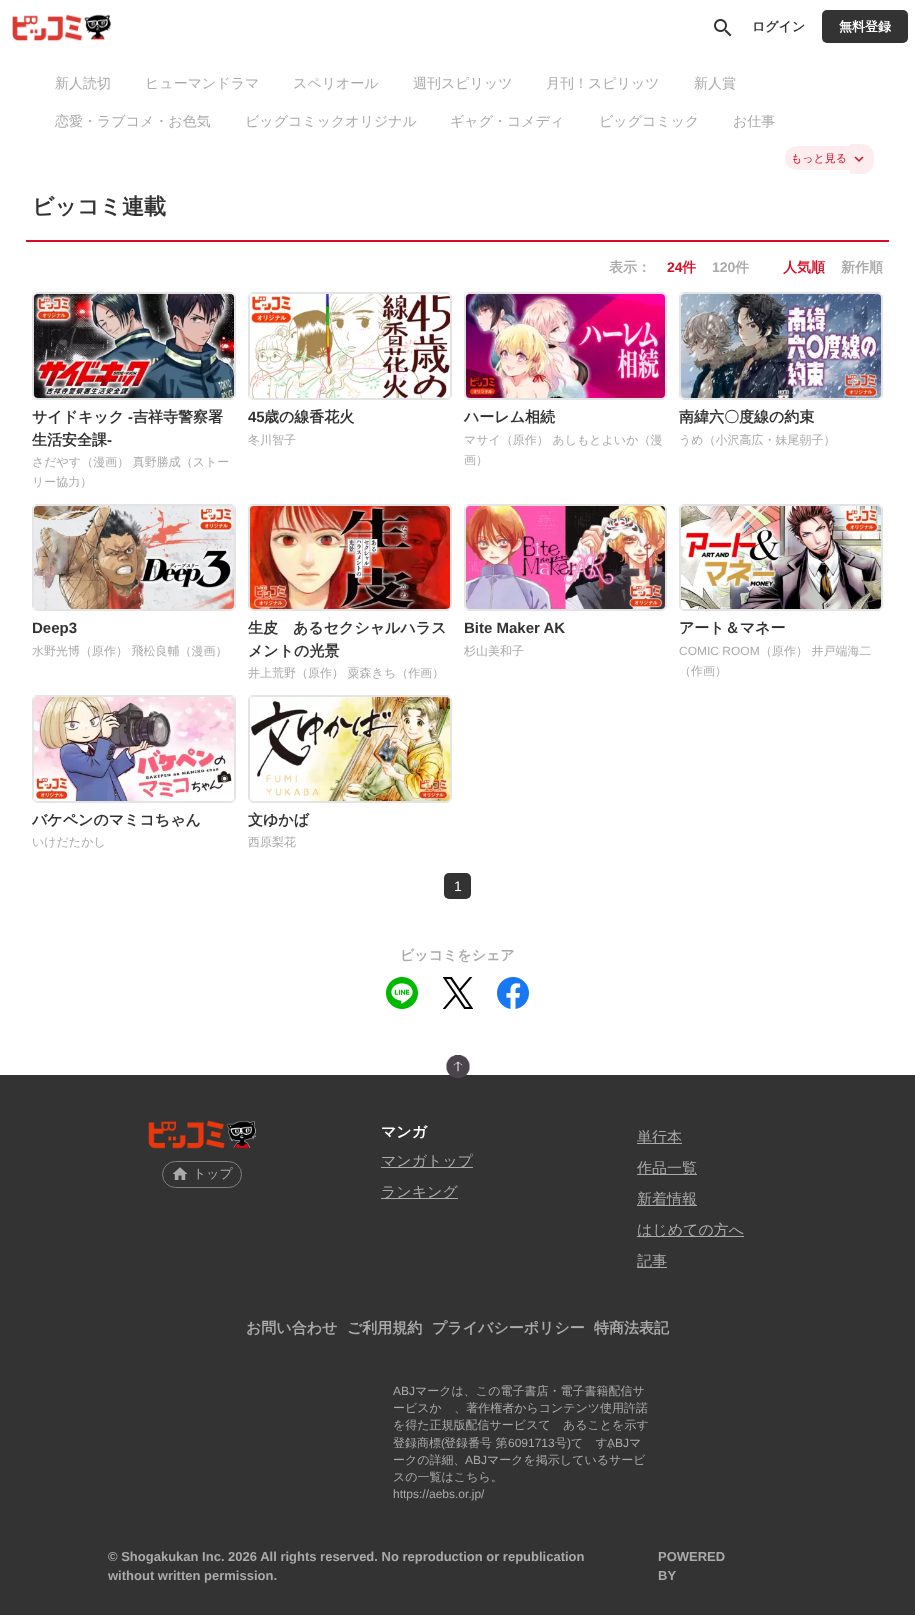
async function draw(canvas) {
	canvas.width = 915;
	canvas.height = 1623;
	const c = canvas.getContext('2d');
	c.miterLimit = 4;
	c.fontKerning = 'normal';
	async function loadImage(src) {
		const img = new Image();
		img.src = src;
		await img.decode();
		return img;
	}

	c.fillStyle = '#fff';
	c.fillRect(0, 0, 915, 1623);
	c.drawImage(await loadImage('img1.png'), 12, 14, 99, 27);
	c.drawImage(await loadImage('img2.png'), 714, 19, 18, 18);
	c.font = 'bold 13px WenQuanYi Zen Hei';
	c.fillStyle = '#333';
	c.fillText('ログイン', 752, 31);
	c.beginPath();
	c.roundRect(822, 10, 86, 33, 5);
	c.fill();
	c.fillStyle = '#fff';
	c.fillText('無料登録', 839, 31);
	c.font = '500 14px WenQuanYi Zen Hei';
	c.fillStyle = '#aaa';
	for (const [text, x, y] of [
		['新人読切', 55, 88],
		['ヒューマンドラマ', 145, 88],
		['スペリオール', 293, 88],
		['週刊スピリッツ', 413, 88],
		['月刊！スピリッツ', 546, 88],
		['新人賞', 694, 88],
		['恋愛・ラブコメ・お色気', 55, 126],
		['ビッグコミックオリジナル', 245, 126],
		['ギャグ・コメディ', 450, 126],
		['ビッグコミック', 599, 126],
		['お仕事', 733, 126],
	]) {
		c.fillText(text, x, y);
	}
	c.fillStyle = '#feedee';
	c.beginPath();
	c.roundRect(785, 146, 65, 24, [12, 0, 0, 12]);
	c.fill();
	c.beginPath();
	c.roundRect(850, 144, 24, 30, [0, 12, 12, 0]);
	c.fill();
	c.font = '500 11px WenQuanYi Zen Hei';
	c.fillStyle = '#d80c24';
	c.fillText('もっと見る', 791, 162);
	c.drawImage(await loadImage('img3.png'), 854, 156, 10, 6);
	c.font = 'bold 22px WenQuanYi Zen Hei';
	c.fillStyle = '#333';
	c.fillText('ビッコミ連載', 32, 214);
	c.fillStyle = '#d80c24';
	c.fillRect(26, 240, 863, 2);
	c.font = 'bold 14px WenQuanYi Zen Hei';
	c.fillStyle = '#aaa';
	c.fillText('表示：', 609, 272);
	c.font = 'bold 14px Liberation Sans';
	c.fillStyle = '#d80c24';
	c.fillText('24', 667, 272);
	c.font = 'bold 14px WenQuanYi Zen Hei';
	c.fillText('件', 682, 272);
	c.font = 'bold 14px Liberation Sans';
	c.fillStyle = '#aaa';
	c.fillText('120', 712, 272);
	c.font = 'bold 14px WenQuanYi Zen Hei';
	c.fillText('件', 735, 272);
	c.fillStyle = '#d80c24';
	c.fillText('人気順', 783, 272);
	c.fillStyle = '#aaa';
	c.fillText('新作順', 841, 272);
	c.beginPath();
	c.roundRect(32.5, 292.5, 203, 107, 4.5);
	c.strokeStyle = '#e4e4e4';
	c.stroke();
	c.fillStyle = '#f4f4f4';
	c.fillRect(33, 293, 202, 106);
	c.beginPath();
	c.roundRect(33.5, 293.5, 201, 105, 4.5);
	c.stroke();
	c.drawImage(await loadImage('img4.png'), 34, 294, 200, 104);
	c.font = 'bold 15px WenQuanYi Zen Hei';
	c.fillStyle = '#333';
	c.fillText('サイドキック', 32, 422);
	c.font = 'bold 15px Liberation Sans';
	c.fillText('-', 128, 422);
	c.font = 'bold 15px WenQuanYi Zen Hei';
	c.fillText('吉祥寺警察署', 133, 422);
	c.fillText('生活安全課', 32, 445);
	c.font = 'bold 15px Liberation Sans';
	c.fillText('-', 107, 445);
	c.font = '500 12px WenQuanYi Zen Hei';
	c.fillStyle = '#aaa';
	c.fillText('さだやす（漫画） 真野勝成（ストー', 32, 466);
	c.fillText('リー協力）', 32, 486);
	c.beginPath();
	c.roundRect(248.5, 292.5, 203, 107, 4.5);
	c.stroke();
	c.fillStyle = '#f4f4f4';
	c.fillRect(249, 293, 202, 106);
	c.beginPath();
	c.roundRect(249.5, 293.5, 201, 105, 4.5);
	c.stroke();
	c.drawImage(await loadImage('img5.png'), 250, 294, 200, 104);
	c.font = 'bold 15px Liberation Sans';
	c.fillStyle = '#333';
	c.fillText('45', 248, 422);
	c.font = 'bold 15px WenQuanYi Zen Hei';
	c.fillText('歳の線香花火', 264, 422);
	c.font = '500 12px WenQuanYi Zen Hei';
	c.fillStyle = '#aaa';
	c.fillText('冬川智子', 248, 444);
	c.beginPath();
	c.roundRect(464.5, 292.5, 202, 107, 4.5);
	c.stroke();
	c.fillStyle = '#f4f4f4';
	c.fillRect(465, 293, 201, 106);
	c.beginPath();
	c.roundRect(465.5, 293.5, 200, 105, 4.5);
	c.stroke();
	c.drawImage(await loadImage('img6.png'), 466, 294, 199, 104);
	c.font = 'bold 15px WenQuanYi Zen Hei';
	c.fillStyle = '#333';
	c.fillText('ハーレム相続', 464, 422);
	c.font = '500 12px WenQuanYi Zen Hei';
	c.fillStyle = '#aaa';
	c.fillText('マサイ（原作） あしもとよいか（漫', 464, 444);
	c.fillText('画）', 464, 464);
	c.beginPath();
	c.roundRect(679.5, 292.5, 203, 107, 4.5);
	c.stroke();
	c.fillStyle = '#f4f4f4';
	c.fillRect(680, 293, 202, 106);
	c.beginPath();
	c.roundRect(680.5, 293.5, 201, 105, 4.5);
	c.stroke();
	c.drawImage(await loadImage('img7.png'), 681, 294, 200, 104);
	c.font = 'bold 15px WenQuanYi Zen Hei';
	c.fillStyle = '#333';
	c.fillText('南緯六〇度線の約束', 679, 422);
	c.font = '500 12px WenQuanYi Zen Hei';
	c.fillStyle = '#aaa';
	c.fillText('うめ（小沢高広・妹尾朝子）', 679, 444);
	c.beginPath();
	c.roundRect(32.5, 504.5, 203, 106, 4.5);
	c.stroke();
	c.fillStyle = '#f4f4f4';
	c.fillRect(33, 505, 202, 105);
	c.beginPath();
	c.roundRect(33.5, 505.5, 201, 104, 4.5);
	c.stroke();
	c.drawImage(await loadImage('img8.png'), 34, 506, 200, 103);
	c.font = 'bold 15px Liberation Sans';
	c.fillStyle = '#333';
	c.fillText('Deep3', 32, 633);
	c.font = '500 12px WenQuanYi Zen Hei';
	c.fillStyle = '#aaa';
	c.fillText('水野光博（原作） 飛松良輔（漫画）', 32, 655);
	c.beginPath();
	c.roundRect(248.5, 504.5, 203, 106, 4.5);
	c.stroke();
	c.fillStyle = '#f4f4f4';
	c.fillRect(249, 505, 202, 105);
	c.beginPath();
	c.roundRect(249.5, 505.5, 201, 104, 4.5);
	c.stroke();
	c.drawImage(await loadImage('img9.png'), 250, 506, 200, 103);
	c.font = 'bold 15px WenQuanYi Zen Hei';
	c.fillStyle = '#333';
	c.fillText('生皮　あるセクシャルハラス', 248, 633);
	c.fillText('メントの光景', 248, 656);
	c.font = '500 12px WenQuanYi Zen Hei';
	c.fillStyle = '#aaa';
	c.fillText('井上荒野（原作） 粟森きち（作画）', 248, 677);
	c.beginPath();
	c.roundRect(464.5, 504.5, 202, 106, 4.5);
	c.stroke();
	c.fillStyle = '#f4f4f4';
	c.fillRect(465, 505, 201, 105);
	c.beginPath();
	c.roundRect(465.5, 505.5, 200, 104, 4.5);
	c.stroke();
	c.drawImage(await loadImage('img10.png'), 466, 506, 199, 103);
	c.font = 'bold 15px Liberation Sans';
	c.fillStyle = '#333';
	c.fillText('Bite Maker AK', 464, 633);
	c.font = '500 12px WenQuanYi Zen Hei';
	c.fillStyle = '#aaa';
	c.fillText('杉山美和子', 464, 655);
	c.beginPath();
	c.roundRect(679.5, 504.5, 203, 106, 4.5);
	c.stroke();
	c.fillStyle = '#f4f4f4';
	c.fillRect(680, 505, 202, 105);
	c.beginPath();
	c.roundRect(680.5, 505.5, 201, 104, 4.5);
	c.stroke();
	c.drawImage(await loadImage('img11.png'), 681, 506, 200, 103);
	c.font = 'bold 15px WenQuanYi Zen Hei';
	c.fillStyle = '#333';
	c.fillText('アート＆マネー', 679, 633);
	c.font = '12px Liberation Sans';
	c.fillStyle = '#aaa';
	c.fillText('COMIC ROOM', 679, 655);
	c.font = '500 12px WenQuanYi Zen Hei';
	c.fillText('（原作） 井戸端海二', 760, 655);
	c.fillText('（作画）', 679, 675);
	c.beginPath();
	c.roundRect(32.5, 695.5, 203, 107, 4.5);
	c.stroke();
	c.fillStyle = '#f4f4f4';
	c.fillRect(33, 696, 202, 106);
	c.beginPath();
	c.roundRect(33.5, 696.5, 201, 105, 4.5);
	c.stroke();
	c.drawImage(await loadImage('img12.png'), 34, 697, 200, 104);
	c.font = 'bold 15px WenQuanYi Zen Hei';
	c.fillStyle = '#333';
	c.fillText('バケペンのマミコちゃん', 32, 825);
	c.font = '500 12px WenQuanYi Zen Hei';
	c.fillStyle = '#aaa';
	c.fillText('いけだたかし', 32, 846);
	c.beginPath();
	c.roundRect(248.5, 695.5, 203, 107, 4.5);
	c.stroke();
	c.fillStyle = '#f4f4f4';
	c.fillRect(249, 696, 202, 106);
	c.beginPath();
	c.roundRect(249.5, 696.5, 201, 105, 4.5);
	c.stroke();
	c.drawImage(await loadImage('img13.png'), 250, 697, 200, 104);
	c.font = 'bold 15px WenQuanYi Zen Hei';
	c.fillStyle = '#333';
	c.fillText('文ゆかば', 248, 825);
	c.font = '500 12px WenQuanYi Zen Hei';
	c.fillStyle = '#aaa';
	c.fillText('西原梨花', 248, 846);
	c.fillStyle = '#333';
	c.beginPath();
	c.roundRect(444, 873, 27, 26, 5);
	c.fill();
	c.font = '14px Liberation Sans';
	c.fillStyle = '#fff';
	c.fillText('1', 454, 891);
	c.font = 'bold 14px WenQuanYi Zen Hei';
	c.fillStyle = '#aaa';
	c.fillText('ビッコミをシェア', 400, 960);
	c.drawImage(await loadImage('img14.png'), 386, 977, 32, 32);
	c.drawImage(await loadImage('img15.png'), 443, 977, 30, 32);
	c.drawImage(await loadImage('img16.png'), 497, 977, 32, 32);
	c.fillStyle = '#333';
	c.fillRect(0, 1075, 915, 540);
	c.drawImage(await loadImage('img17.png'), 446, 1055, 24, 23);
	c.drawImage(await loadImage('img18.png'), 148, 1120, 109, 29);
	c.beginPath();
	c.roundRect(162.5, 1161.5, 79, 26, 13);
	c.strokeStyle = '#808080';
	c.stroke();
	c.drawImage(await loadImage('img19.png'), 172, 1167, 16, 13);
	c.font = '500 13px WenQuanYi Zen Hei';
	c.fillStyle = '#aaa';
	c.fillText('トップ', 193, 1178);
	c.font = 'bold 15px WenQuanYi Zen Hei';
	c.fillStyle = '#fff';
	c.fillText('マンガ', 381, 1137);
	c.fillStyle = '#aaa';
	c.fillRect(381, 1167, 92, 1);
	c.font = '500 15px WenQuanYi Zen Hei';
	c.fillText('マンガトップ', 381, 1166);
	c.fillRect(381, 1198, 77, 1);
	c.fillText('ランキング', 381, 1197);
	c.fillRect(637, 1143, 45, 1);
	c.fillText('単行本', 637, 1142);
	c.fillRect(637, 1174, 60, 1);
	c.fillText('作品一覧', 637, 1173);
	c.fillRect(637, 1205, 60, 1);
	c.fillText('新着情報', 637, 1204);
	c.fillRect(637, 1236, 107, 1);
	c.fillText('はじめての方へ', 637, 1235);
	c.fillRect(637, 1267, 30, 1);
	c.fillText('記事', 637, 1266);
	c.font = 'bold 15px WenQuanYi Zen Hei';
	for (const [text, x, y] of [
		['お問い合わせ', 246, 1333],
		['ご利用規約', 347, 1333],
		['プライバシーポリシー', 432, 1333],
		['特商法表記', 594, 1333],
	]) {
		c.fillText(text, x, y);
	}
	c.font = '12px Liberation Sans';
	c.fillText('ABJ', 393, 1395);
	c.font = '500 12px WenQuanYi Zen Hei';
	for (const [text, x, y] of [
		['マークは、この電子書店・電子書籍配信サ', 415, 1395],
		['ービスが、著作権者からコンテンツ使用許諾', 393, 1412],
		['を得た正規版配信サービスであることを示す', 393, 1429],
		['登録商標', 393, 1447],
	]) {
		c.fillText(text, x, y);
	}
	c.font = '12px Liberation Sans';
	c.fillText('(', 441, 1447);
	c.font = '500 12px WenQuanYi Zen Hei';
	c.fillText('登録番号 第', 444, 1447);
	c.font = '12px Liberation Sans';
	c.fillText('6091713', 508, 1447);
	c.font = '500 12px WenQuanYi Zen Hei';
	c.fillText('号', 555, 1447);
	c.font = '12px Liberation Sans';
	c.fillText(')', 567, 1447);
	c.font = '500 12px WenQuanYi Zen Hei';
	c.fillText('です。', 571, 1447);
	c.font = '12px Liberation Sans';
	c.fillText('ABJ', 607, 1447);
	c.font = '500 12px WenQuanYi Zen Hei';
	c.fillText('マ', 629, 1447);
	c.fillText('ークの詳細、', 393, 1464);
	c.font = '12px Liberation Sans';
	c.fillText('ABJ', 465, 1464);
	c.font = '500 12px WenQuanYi Zen Hei';
	c.fillText('マークを掲示しているサービ', 487, 1464);
	c.fillText('スの一覧はこちら。', 393, 1481);
	c.font = '12px Liberation Sans';
	c.fillText('https://aebs.or.jp/', 393, 1498);
	c.font = 'bold 13px Liberation Sans';
	for (const [text, x, y] of [
		['© Shogakukan Inc. 2026 All rights reserved. No reproduction or republication', 108, 1561],
		['without written permission.', 108, 1580],
		['POWERED', 658, 1561],
		['BY', 658, 1580],
	]) {
		c.fillText(text, x, y);
	}
}

draw(document.querySelector('canvas'));
